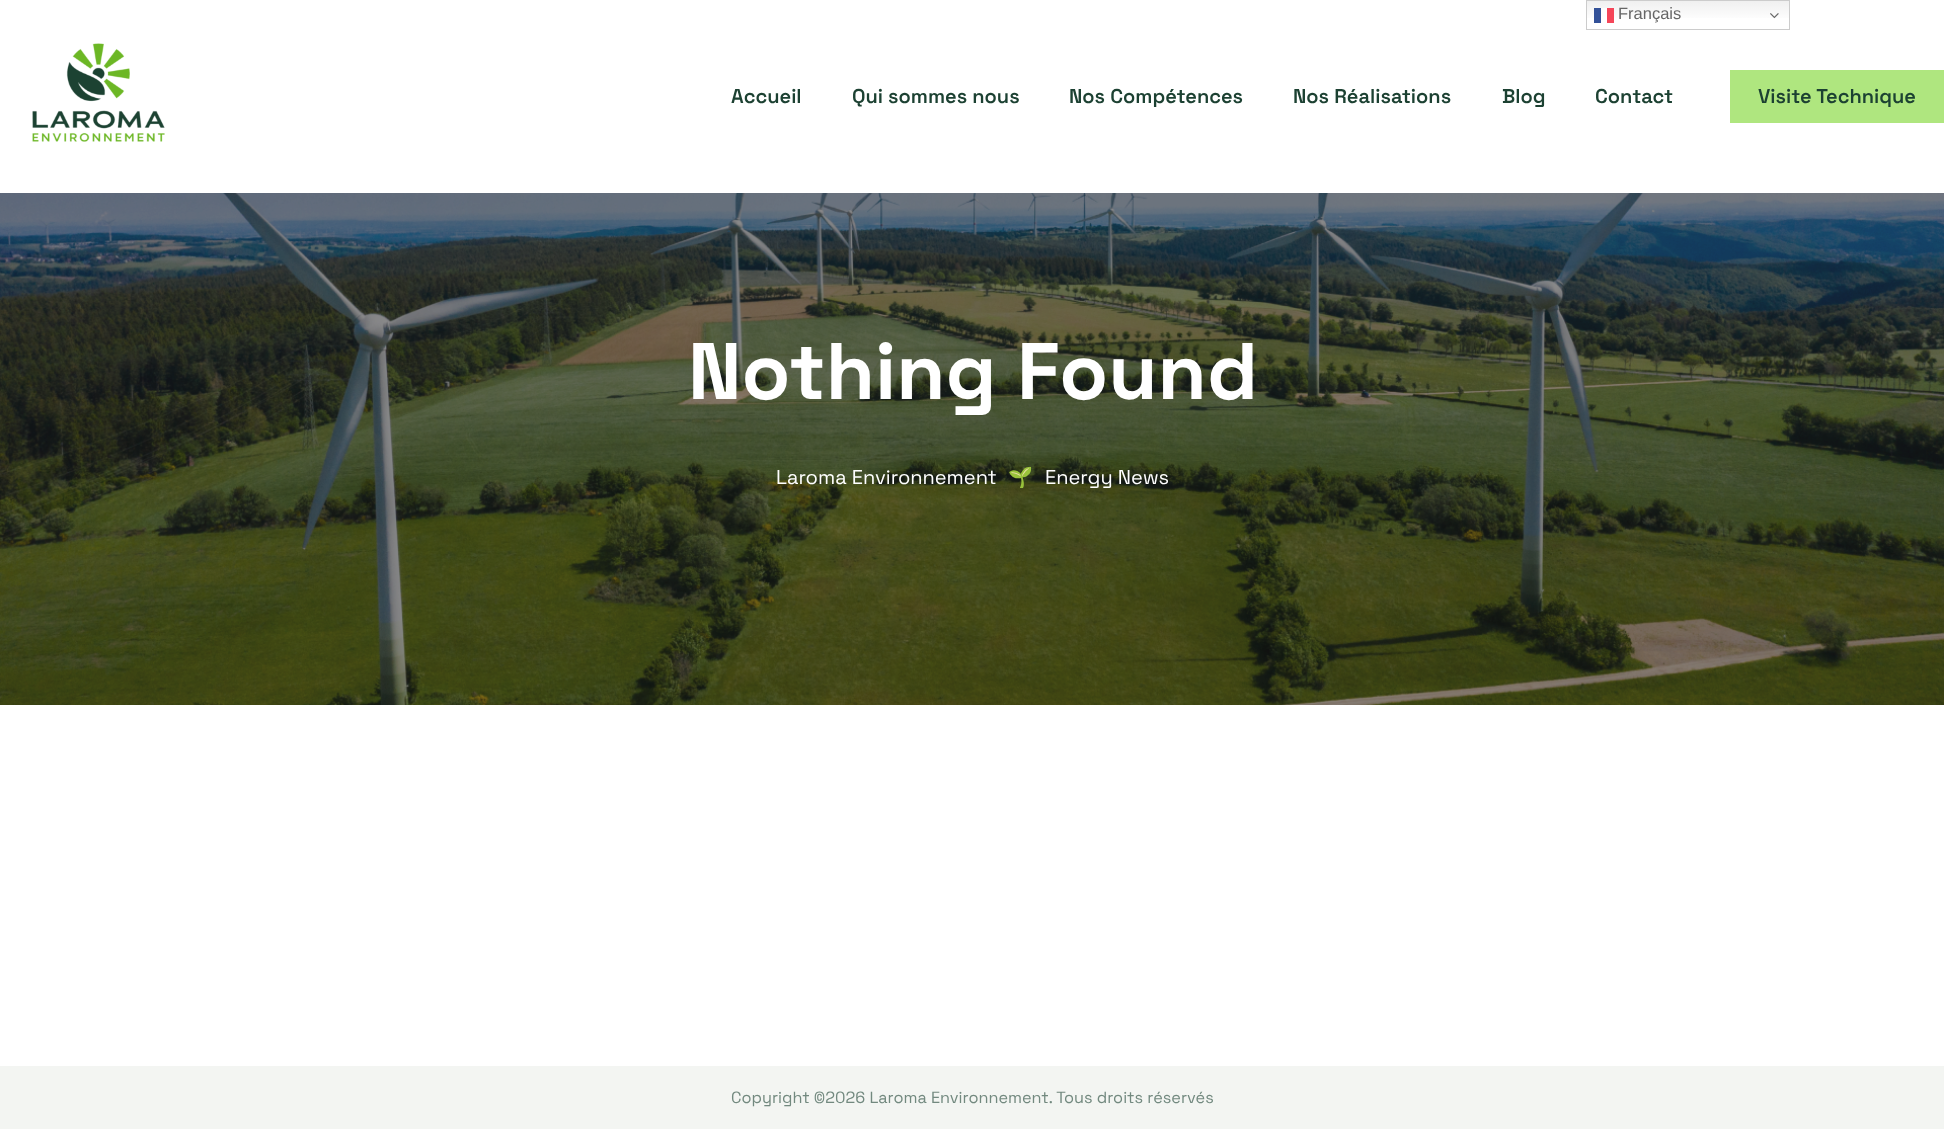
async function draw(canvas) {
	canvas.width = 1944;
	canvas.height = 1129;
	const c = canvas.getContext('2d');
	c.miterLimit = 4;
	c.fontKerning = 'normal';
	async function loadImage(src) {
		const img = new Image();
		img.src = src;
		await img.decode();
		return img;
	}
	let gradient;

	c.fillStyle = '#fff';
	c.fillRect(0, 0, 1944, 1129);
	gradient = c.createLinearGradient(1688, 0, 1688, 30);
	gradient.addColorStop(0, '#efefef');
	gradient.addColorStop(0.7, '#fff');
	c.fillStyle = gradient;
	c.fillRect(1587, 1, 202, 17);
	c.strokeStyle = '#ccc';
	c.strokeRect(1586.5, 0.5, 203, 29);
	for (const [x, y, w, h, color] of [
		[1594, 8, 7, 15, '#335198'],
		[1601, 8, 6, 15, '#ffffffcc'],
		[1607, 8, 7, 15, '#f54659'],
	]) {
		c.fillStyle = color;
		c.fillRect(x, y, w, h);
	}
	c.font = '16.5px Liberation Sans';
	c.fillStyle = '#666';
	c.fillText('Français', 1618, 19);
	c.drawImage(await loadImage('img1.png'), 1770, 13, 9, 6);
	c.drawImage(await loadImage('img2.png'), 32, 43, 133, 99);
	c.font = '600 20px Space Grotesk';
	c.fillStyle = '#1c4132';
	for (const [text, x, y] of [
		['Accueil', 731, 103],
		['Qui sommes nous', 852, 103],
		['Nos Compétences', 1069, 103],
		['Nos Réalisations', 1293, 103],
		['Blog', 1502, 103],
		['Contact', 1595, 103],
	]) {
		c.fillText(text, x, y);
	}
	c.fillStyle = '#afe67f';
	c.fillRect(1730, 70, 214, 53);
	c.fillStyle = '#1c4132';
	c.fillText('Visite Technique', 1758, 103);
	c.drawImage(await loadImage('img3.png'), 0, 193, 1944, 512);
	c.font = 'bold 80px Space Grotesk';
	c.fillStyle = '#fff';
	c.fillText('Nothing Found', 688, 399);
	c.font = '20px Space Grotesk';
	c.fillText('Laroma Environnement', 776, 484);
	c.font = '20px Noto Color Emoji';
	c.fillText('🌱', 1008, 484);
	c.font = '20px Space Grotesk';
	c.fillText('Energy News', 1045, 484);
	c.fillStyle = '#f3f5f2';
	c.fillRect(0, 1066, 1944, 63);
	c.font = '16.25px Space Grotesk';
	c.fillStyle = '#72897f';
	c.fillText('Copyright ©2026 Laroma Environnement. Tous droits réservés', 731, 1103);
}

draw(document.querySelector('canvas'));
